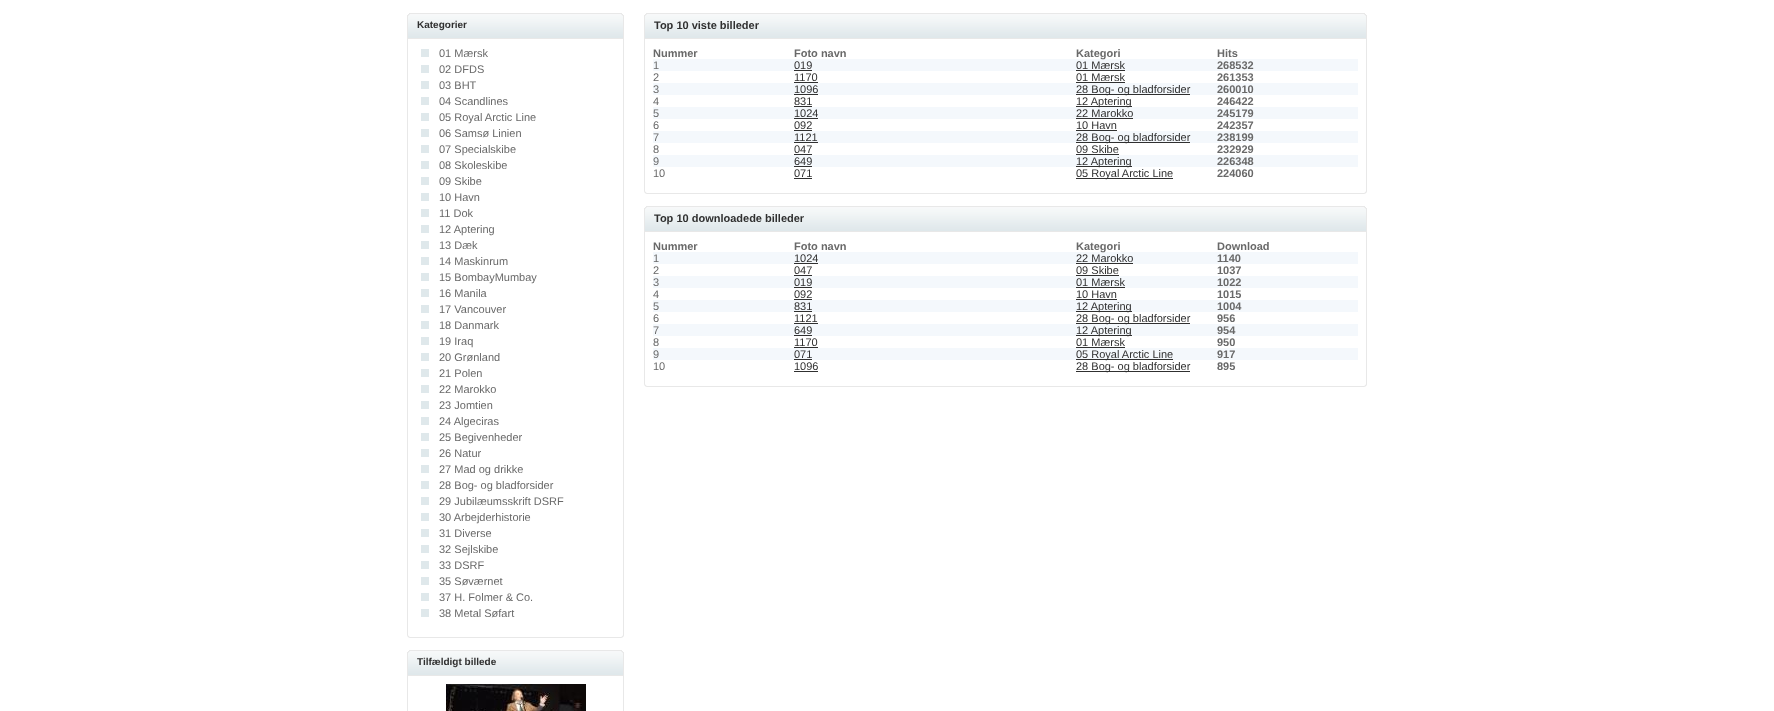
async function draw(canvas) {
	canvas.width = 1774;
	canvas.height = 711;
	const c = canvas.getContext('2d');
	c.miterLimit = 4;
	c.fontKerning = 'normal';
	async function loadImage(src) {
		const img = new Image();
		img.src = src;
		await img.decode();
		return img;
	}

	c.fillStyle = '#fff';
	c.fillRect(0, 0, 1774, 711);
	c.drawImage(await loadImage('img1.png'), 407, 13, 217, 26);
	c.font = 'bold 10px Liberation Sans';
	c.fillStyle = '#303030';
	c.fillText('Kategorier', 417, 28);
	for (const [x, y, w, h, color] of [
		[623, 39, 1, 592, '#e8e8e8'],
		[407, 39, 1, 592, '#e8e8e8'],
		[421, 49, 8, 8, '#dfe8eb'],
	]) {
		c.fillStyle = color;
		c.fillRect(x, y, w, h);
	}
	c.font = '11px Liberation Sans';
	c.fillStyle = '#696969';
	c.fillText('01 Mærsk', 439, 57);
	c.fillStyle = '#dfe8eb';
	c.fillRect(421, 65, 8, 8);
	c.fillStyle = '#696969';
	c.fillText('02 DFDS', 439, 73);
	c.fillStyle = '#dfe8eb';
	c.fillRect(421, 81, 8, 8);
	c.fillStyle = '#696969';
	c.fillText('03 BHT', 439, 89);
	c.fillStyle = '#dfe8eb';
	c.fillRect(421, 97, 8, 8);
	c.fillStyle = '#696969';
	c.fillText('04 Scandlines', 439, 105);
	c.fillStyle = '#dfe8eb';
	c.fillRect(421, 113, 8, 8);
	c.fillStyle = '#696969';
	c.fillText('05 Royal Arctic Line', 439, 121);
	c.fillStyle = '#dfe8eb';
	c.fillRect(421, 129, 8, 8);
	c.fillStyle = '#696969';
	c.fillText('06 Samsø Linien', 439, 137);
	c.fillStyle = '#dfe8eb';
	c.fillRect(421, 145, 8, 8);
	c.fillStyle = '#696969';
	c.fillText('07 Specialskibe', 439, 153);
	c.fillStyle = '#dfe8eb';
	c.fillRect(421, 161, 8, 8);
	c.fillStyle = '#696969';
	c.fillText('08 Skoleskibe', 439, 169);
	c.fillStyle = '#dfe8eb';
	c.fillRect(421, 177, 8, 8);
	c.fillStyle = '#696969';
	c.fillText('09 Skibe', 439, 185);
	c.fillStyle = '#dfe8eb';
	c.fillRect(421, 193, 8, 8);
	c.fillStyle = '#696969';
	c.fillText('10 Havn', 439, 201);
	c.fillStyle = '#dfe8eb';
	c.fillRect(421, 209, 8, 8);
	c.fillStyle = '#696969';
	c.fillText('11 Dok', 439, 217);
	c.fillStyle = '#dfe8eb';
	c.fillRect(421, 225, 8, 8);
	c.fillStyle = '#696969';
	c.fillText('12 Aptering', 439, 233);
	c.fillStyle = '#dfe8eb';
	c.fillRect(421, 241, 8, 8);
	c.fillStyle = '#696969';
	c.fillText('13 Dæk', 439, 249);
	c.fillStyle = '#dfe8eb';
	c.fillRect(421, 257, 8, 8);
	c.fillStyle = '#696969';
	c.fillText('14 Maskinrum', 439, 265);
	c.fillStyle = '#dfe8eb';
	c.fillRect(421, 273, 8, 8);
	c.fillStyle = '#696969';
	c.fillText('15 BombayMumbay', 439, 281);
	c.fillStyle = '#dfe8eb';
	c.fillRect(421, 289, 8, 8);
	c.fillStyle = '#696969';
	c.fillText('16 Manila', 439, 297);
	c.fillStyle = '#dfe8eb';
	c.fillRect(421, 305, 8, 8);
	c.fillStyle = '#696969';
	c.fillText('17 Vancouver', 439, 313);
	c.fillStyle = '#dfe8eb';
	c.fillRect(421, 321, 8, 8);
	c.fillStyle = '#696969';
	c.fillText('18 Danmark', 439, 329);
	c.fillStyle = '#dfe8eb';
	c.fillRect(421, 337, 8, 8);
	c.fillStyle = '#696969';
	c.fillText('19 Iraq', 439, 345);
	c.fillStyle = '#dfe8eb';
	c.fillRect(421, 353, 8, 8);
	c.fillStyle = '#696969';
	c.fillText('20 Grønland', 439, 361);
	c.fillStyle = '#dfe8eb';
	c.fillRect(421, 369, 8, 8);
	c.fillStyle = '#696969';
	c.fillText('21 Polen', 439, 377);
	c.fillStyle = '#dfe8eb';
	c.fillRect(421, 385, 8, 8);
	c.fillStyle = '#696969';
	c.fillText('22 Marokko', 439, 393);
	c.fillStyle = '#dfe8eb';
	c.fillRect(421, 401, 8, 8);
	c.fillStyle = '#696969';
	c.fillText('23 Jomtien', 439, 409);
	c.fillStyle = '#dfe8eb';
	c.fillRect(421, 417, 8, 8);
	c.fillStyle = '#696969';
	c.fillText('24 Algeciras', 439, 425);
	c.fillStyle = '#dfe8eb';
	c.fillRect(421, 433, 8, 8);
	c.fillStyle = '#696969';
	c.fillText('25 Begivenheder', 439, 441);
	c.fillStyle = '#dfe8eb';
	c.fillRect(421, 449, 8, 8);
	c.fillStyle = '#696969';
	c.fillText('26 Natur', 439, 457);
	c.fillStyle = '#dfe8eb';
	c.fillRect(421, 465, 8, 8);
	c.fillStyle = '#696969';
	c.fillText('27 Mad og drikke', 439, 473);
	c.fillStyle = '#dfe8eb';
	c.fillRect(421, 481, 8, 8);
	c.fillStyle = '#696969';
	c.fillText('28 Bog- og bladforsider', 439, 489);
	c.fillStyle = '#dfe8eb';
	c.fillRect(421, 497, 8, 8);
	c.fillStyle = '#696969';
	c.fillText('29 Jubilæumsskrift DSRF', 439, 505);
	c.fillStyle = '#dfe8eb';
	c.fillRect(421, 513, 8, 8);
	c.fillStyle = '#696969';
	c.fillText('30 Arbejderhistorie', 439, 521);
	c.fillStyle = '#dfe8eb';
	c.fillRect(421, 529, 8, 8);
	c.fillStyle = '#696969';
	c.fillText('31 Diverse', 439, 537);
	c.fillStyle = '#dfe8eb';
	c.fillRect(421, 545, 8, 8);
	c.fillStyle = '#696969';
	c.fillText('32 Sejlskibe', 439, 553);
	c.fillStyle = '#dfe8eb';
	c.fillRect(421, 561, 8, 8);
	c.fillStyle = '#696969';
	c.fillText('33 DSRF', 439, 569);
	c.fillStyle = '#dfe8eb';
	c.fillRect(421, 577, 8, 8);
	c.fillStyle = '#696969';
	c.fillText('35 Søværnet', 439, 585);
	c.fillStyle = '#dfe8eb';
	c.fillRect(421, 593, 8, 8);
	c.fillStyle = '#696969';
	c.fillText('37 H. Folmer & Co.', 439, 601);
	c.fillStyle = '#dfe8eb';
	c.fillRect(421, 609, 8, 8);
	c.fillStyle = '#696969';
	c.fillText('38 Metal Søfart', 439, 617);
	c.fillStyle = '#e8e8e8';
	c.fillRect(407, 637, 217, 1);
	c.drawImage(await loadImage('img2.png'), 407, 631, 3, 7);
	c.drawImage(await loadImage('img3.png'), 621, 631, 3, 7);
	c.drawImage(await loadImage('img1.png'), 407, 650, 217, 26);
	c.font = 'bold 10px Liberation Sans';
	c.fillStyle = '#303030';
	c.fillText('Tilfældigt billede', 417, 665);
	c.fillStyle = '#e8e8e8';
	c.fillRect(623, 676, 1, 35);
	c.fillRect(407, 676, 1, 35);
	c.drawImage(await loadImage('img4.png'), 446, 684, 140, 27);
	c.drawImage(await loadImage('img5.png'), 644, 13, 723, 26);
	c.drawImage(await loadImage('img6.png'), 644, 13, 3, 25);
	c.font = 'bold 11px Liberation Sans';
	c.fillStyle = '#303030';
	c.fillText('Top 10 viste billeder', 654, 29);
	c.drawImage(await loadImage('img7.png'), 1364, 13, 3, 25);
	c.fillStyle = '#e8e8e8';
	c.fillRect(1366, 39, 1, 148);
	c.fillRect(644, 39, 1, 148);
	c.fillStyle = '#696969';
	c.fillText('Nummer', 653, 57);
	c.fillText('Foto navn', 794, 57);
	c.fillStyle = '#f4f8fc';
	c.fillRect(653, 59, 705, 12);
	c.fillStyle = '#696969';
	c.fillText('Kategori', 1076, 57);
	c.fillText('Hits', 1217, 57);
	c.font = '11px Liberation Sans';
	c.fillText('1', 653, 69);
	c.fillStyle = '#303030';
	c.fillText('019', 794, 69);
	c.fillRect(794, 70, 18, 1);
	c.fillText('01 Mærsk', 1076, 69);
	c.fillRect(1076, 70, 49, 1);
	c.font = 'bold 11px Liberation Sans';
	c.fillStyle = '#696969';
	c.fillText('268532', 1217, 69);
	c.font = '11px Liberation Sans';
	c.fillText('2', 653, 81);
	c.fillStyle = '#303030';
	c.fillText('1170', 794, 81);
	c.fillRect(794, 82, 24, 1);
	c.fillText('01 Mærsk', 1076, 81);
	c.fillRect(1076, 82, 49, 1);
	c.font = 'bold 11px Liberation Sans';
	c.fillStyle = '#696969';
	c.fillText('261353', 1217, 81);
	c.fillStyle = '#f4f8fc';
	c.fillRect(653, 83, 705, 12);
	c.font = '11px Liberation Sans';
	c.fillStyle = '#696969';
	c.fillText('3', 653, 93);
	c.fillStyle = '#303030';
	c.fillText('1096', 794, 93);
	c.fillRect(794, 94, 24, 1);
	c.fillRect(1076, 94, 114, 1);
	c.fillText('28 Bog- og bladforsider', 1076, 93);
	c.font = 'bold 11px Liberation Sans';
	c.fillStyle = '#696969';
	c.fillText('260010', 1217, 93);
	c.font = '11px Liberation Sans';
	c.fillText('4', 653, 105);
	c.fillStyle = '#303030';
	c.fillText('831', 794, 105);
	for (const [x, y, w, h, color] of [
		[794, 106, 18, 1, '#303030'],
		[1076, 106, 56, 1, '#303030'],
		[653, 107, 705, 12, '#f4f8fc'],
	]) {
		c.fillStyle = color;
		c.fillRect(x, y, w, h);
	}
	c.fillStyle = '#303030';
	c.fillText('12 Aptering', 1076, 105);
	c.font = 'bold 11px Liberation Sans';
	c.fillStyle = '#696969';
	c.fillText('246422', 1217, 105);
	c.font = '11px Liberation Sans';
	c.fillText('5', 653, 117);
	c.fillStyle = '#303030';
	c.fillText('1024', 794, 117);
	c.fillRect(794, 118, 24, 1);
	c.fillText('22 Marokko', 1076, 117);
	c.fillRect(1076, 118, 57, 1);
	c.font = 'bold 11px Liberation Sans';
	c.fillStyle = '#696969';
	c.fillText('245179', 1217, 117);
	c.font = '11px Liberation Sans';
	c.fillText('6', 653, 129);
	c.fillStyle = '#303030';
	c.fillText('092', 794, 129);
	c.fillRect(794, 130, 18, 1);
	c.fillText('10 Havn', 1076, 129);
	c.fillRect(1076, 130, 41, 1);
	c.font = 'bold 11px Liberation Sans';
	c.fillStyle = '#696969';
	c.fillText('242357', 1217, 129);
	c.fillStyle = '#f4f8fc';
	c.fillRect(653, 131, 705, 12);
	c.font = '11px Liberation Sans';
	c.fillStyle = '#696969';
	c.fillText('7', 653, 141);
	c.fillStyle = '#303030';
	c.fillText('1121', 794, 141);
	c.fillRect(794, 142, 24, 1);
	c.fillRect(1076, 142, 114, 1);
	c.fillText('28 Bog- og bladforsider', 1076, 141);
	c.font = 'bold 11px Liberation Sans';
	c.fillStyle = '#696969';
	c.fillText('238199', 1217, 141);
	c.font = '11px Liberation Sans';
	c.fillText('8', 653, 153);
	c.fillStyle = '#303030';
	c.fillText('047', 794, 153);
	c.fillRect(794, 154, 18, 1);
	c.fillText('09 Skibe', 1076, 153);
	c.fillRect(1076, 154, 43, 1);
	c.font = 'bold 11px Liberation Sans';
	c.fillStyle = '#696969';
	c.fillText('232929', 1217, 153);
	c.fillStyle = '#f4f8fc';
	c.fillRect(653, 155, 705, 12);
	c.font = '11px Liberation Sans';
	c.fillStyle = '#696969';
	c.fillText('9', 653, 165);
	c.fillStyle = '#303030';
	c.fillText('649', 794, 165);
	c.fillRect(794, 166, 18, 1);
	c.fillRect(1076, 166, 56, 1);
	c.fillText('12 Aptering', 1076, 165);
	c.font = 'bold 11px Liberation Sans';
	c.fillStyle = '#696969';
	c.fillText('226348', 1217, 165);
	c.font = '11px Liberation Sans';
	c.fillText('10', 653, 177);
	c.fillStyle = '#303030';
	c.fillText('071', 794, 177);
	c.fillRect(794, 178, 18, 1);
	c.fillRect(1076, 178, 97, 1);
	c.fillText('05 Royal Arctic Line', 1076, 177);
	c.font = 'bold 11px Liberation Sans';
	c.fillStyle = '#696969';
	c.fillText('224060', 1217, 177);
	c.fillStyle = '#e8e8e8';
	c.fillRect(644, 193, 723, 1);
	c.drawImage(await loadImage('img2.png'), 644, 187, 3, 7);
	c.drawImage(await loadImage('img3.png'), 1364, 187, 3, 7);
	c.drawImage(await loadImage('img5.png'), 644, 206, 723, 26);
	c.drawImage(await loadImage('img6.png'), 644, 206, 3, 25);
	c.fillStyle = '#303030';
	c.fillText('Top 10 downloadede billeder', 654, 222);
	c.drawImage(await loadImage('img7.png'), 1364, 206, 3, 25);
	c.fillStyle = '#e8e8e8';
	c.fillRect(1366, 232, 1, 148);
	c.fillRect(644, 232, 1, 148);
	c.fillStyle = '#696969';
	c.fillText('Nummer', 653, 250);
	c.fillText('Foto navn', 794, 250);
	c.fillStyle = '#f4f8fc';
	c.fillRect(653, 252, 705, 12);
	c.fillStyle = '#696969';
	c.fillText('Kategori', 1076, 250);
	c.fillText('Download', 1217, 250);
	c.font = '11px Liberation Sans';
	c.fillText('1', 653, 262);
	c.fillStyle = '#303030';
	c.fillText('1024', 794, 262);
	c.fillRect(794, 263, 24, 1);
	c.fillText('22 Marokko', 1076, 262);
	c.fillRect(1076, 263, 57, 1);
	c.font = 'bold 11px Liberation Sans';
	c.fillStyle = '#696969';
	c.fillText('1140', 1217, 262);
	c.font = '11px Liberation Sans';
	c.fillText('2', 653, 274);
	c.fillStyle = '#303030';
	c.fillText('047', 794, 274);
	c.fillRect(794, 275, 18, 1);
	c.fillText('09 Skibe', 1076, 274);
	c.fillRect(1076, 275, 43, 1);
	c.font = 'bold 11px Liberation Sans';
	c.fillStyle = '#696969';
	c.fillText('1037', 1217, 274);
	c.fillStyle = '#f4f8fc';
	c.fillRect(653, 276, 705, 12);
	c.font = '11px Liberation Sans';
	c.fillStyle = '#696969';
	c.fillText('3', 653, 286);
	c.fillStyle = '#303030';
	c.fillText('019', 794, 286);
	c.fillRect(794, 287, 18, 1);
	c.fillText('01 Mærsk', 1076, 286);
	c.fillRect(1076, 287, 49, 1);
	c.font = 'bold 11px Liberation Sans';
	c.fillStyle = '#696969';
	c.fillText('1022', 1217, 286);
	c.font = '11px Liberation Sans';
	c.fillText('4', 653, 298);
	c.fillStyle = '#303030';
	c.fillText('092', 794, 298);
	c.fillRect(794, 299, 18, 1);
	c.fillText('10 Havn', 1076, 298);
	c.fillRect(1076, 299, 41, 1);
	c.font = 'bold 11px Liberation Sans';
	c.fillStyle = '#696969';
	c.fillText('1015', 1217, 298);
	c.fillStyle = '#f4f8fc';
	c.fillRect(653, 300, 705, 12);
	c.font = '11px Liberation Sans';
	c.fillStyle = '#696969';
	c.fillText('5', 653, 310);
	c.fillStyle = '#303030';
	c.fillText('831', 794, 310);
	c.fillRect(794, 311, 18, 1);
	c.fillRect(1076, 311, 56, 1);
	c.fillText('12 Aptering', 1076, 310);
	c.font = 'bold 11px Liberation Sans';
	c.fillStyle = '#696969';
	c.fillText('1004', 1217, 310);
	c.font = '11px Liberation Sans';
	c.fillText('6', 653, 322);
	c.fillStyle = '#303030';
	c.fillText('1121', 794, 322);
	for (const [x, y, w, h, color] of [
		[794, 323, 24, 1, '#303030'],
		[1076, 323, 114, 1, '#303030'],
		[653, 324, 705, 12, '#f4f8fc'],
	]) {
		c.fillStyle = color;
		c.fillRect(x, y, w, h);
	}
	c.fillStyle = '#303030';
	c.fillText('28 Bog- og bladforsider', 1076, 322);
	c.font = 'bold 11px Liberation Sans';
	c.fillStyle = '#696969';
	c.fillText('956', 1217, 322);
	c.font = '11px Liberation Sans';
	c.fillText('7', 653, 334);
	c.fillStyle = '#303030';
	c.fillText('649', 794, 334);
	c.fillRect(794, 335, 18, 1);
	c.fillRect(1076, 335, 56, 1);
	c.fillText('12 Aptering', 1076, 334);
	c.font = 'bold 11px Liberation Sans';
	c.fillStyle = '#696969';
	c.fillText('954', 1217, 334);
	c.font = '11px Liberation Sans';
	c.fillText('8', 653, 346);
	c.fillStyle = '#303030';
	c.fillText('1170', 794, 346);
	c.fillRect(794, 347, 24, 1);
	c.fillText('01 Mærsk', 1076, 346);
	c.fillRect(1076, 347, 49, 1);
	c.font = 'bold 11px Liberation Sans';
	c.fillStyle = '#696969';
	c.fillText('950', 1217, 346);
	c.fillStyle = '#f4f8fc';
	c.fillRect(653, 348, 705, 12);
	c.font = '11px Liberation Sans';
	c.fillStyle = '#696969';
	c.fillText('9', 653, 358);
	c.fillStyle = '#303030';
	c.fillText('071', 794, 358);
	c.fillRect(794, 359, 18, 1);
	c.fillRect(1076, 359, 97, 1);
	c.fillText('05 Royal Arctic Line', 1076, 358);
	c.font = 'bold 11px Liberation Sans';
	c.fillStyle = '#696969';
	c.fillText('917', 1217, 358);
	c.font = '11px Liberation Sans';
	c.fillText('10', 653, 370);
	c.fillStyle = '#303030';
	c.fillText('1096', 794, 370);
	c.fillRect(794, 371, 24, 1);
	c.fillRect(1076, 371, 114, 1);
	c.fillText('28 Bog- og bladforsider', 1076, 370);
	c.font = 'bold 11px Liberation Sans';
	c.fillStyle = '#696969';
	c.fillText('895', 1217, 370);
	c.fillStyle = '#e8e8e8';
	c.fillRect(644, 386, 723, 1);
	c.drawImage(await loadImage('img2.png'), 644, 380, 3, 7);
	c.drawImage(await loadImage('img3.png'), 1364, 380, 3, 7);
}

draw(document.querySelector('canvas'));
